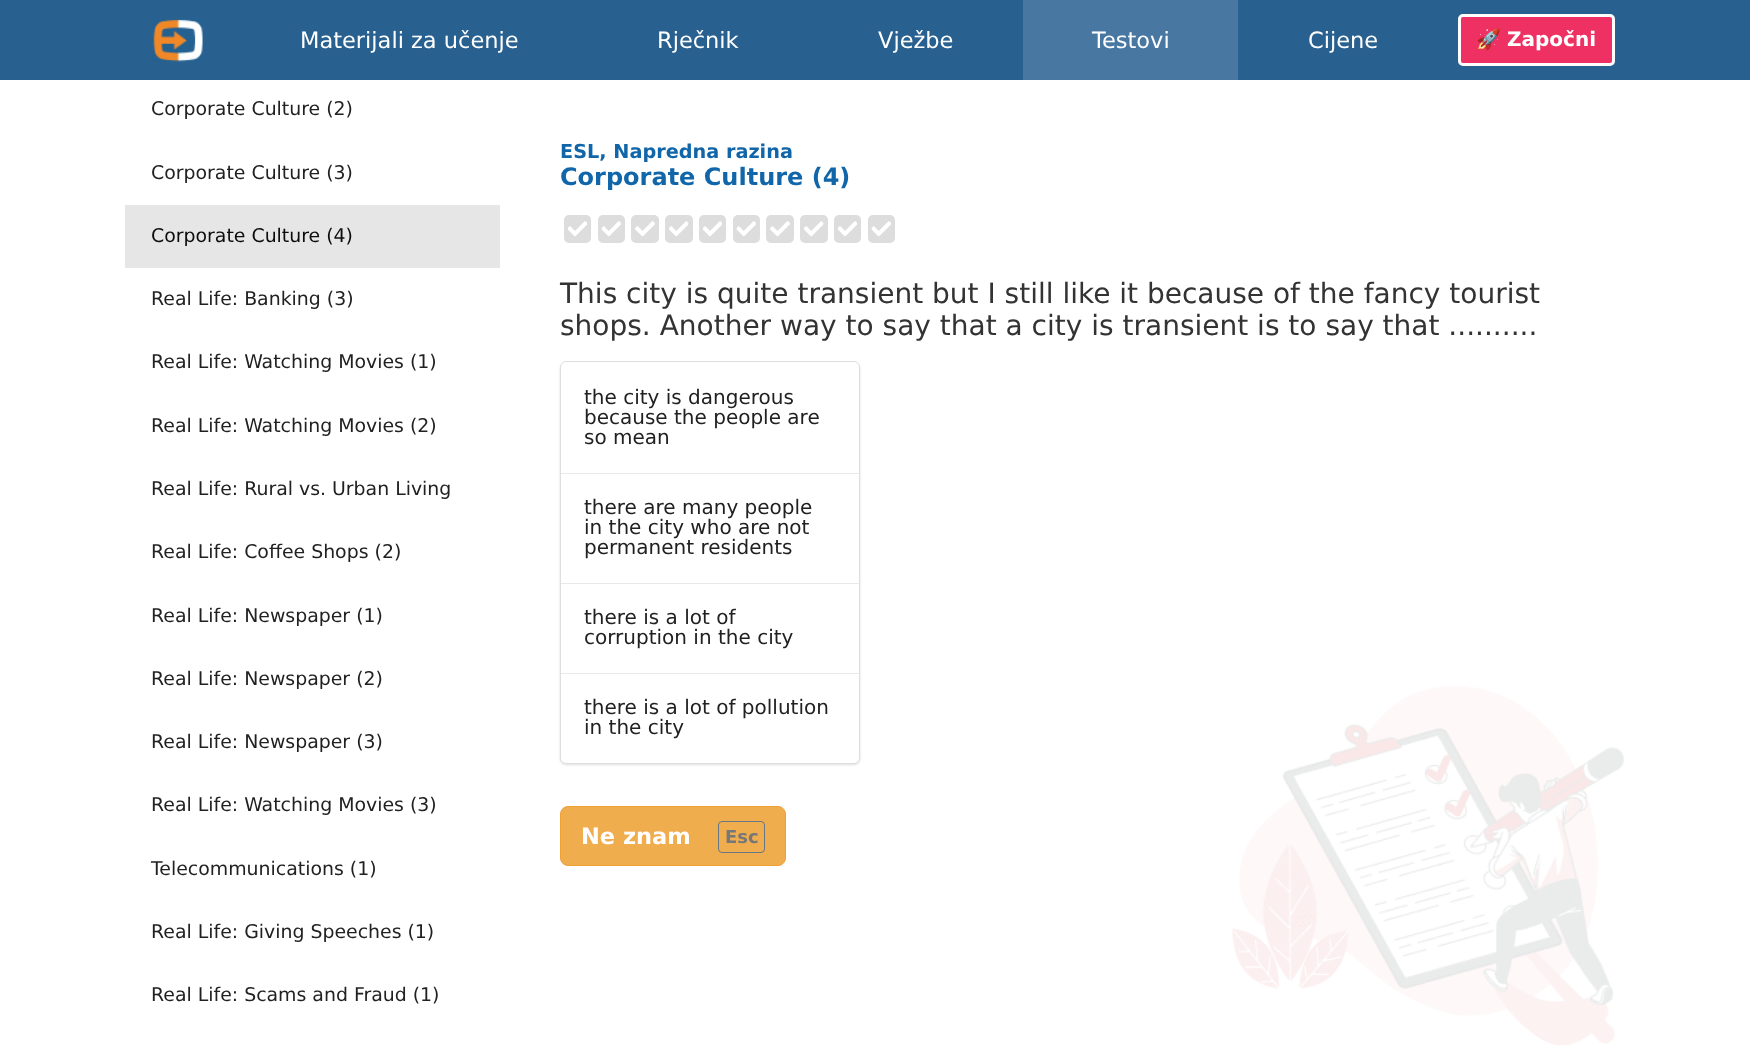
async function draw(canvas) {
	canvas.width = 1750;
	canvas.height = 1046;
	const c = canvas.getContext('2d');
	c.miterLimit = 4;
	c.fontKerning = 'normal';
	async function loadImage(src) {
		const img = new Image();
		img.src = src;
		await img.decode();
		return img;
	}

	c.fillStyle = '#fff';
	c.fillRect(0, 0, 1750, 1046);
	c.fillStyle = '#286090';
	c.fillRect(0, 0, 1750, 80);
	c.drawImage(await loadImage('img1.png'), 153, 19, 50, 43);
	c.font = '22.5px DejaVu Sans';
	c.fillStyle = '#fff';
	for (const [text, x, y] of [
		['Materijali za učenje', 300, 48],
		['Rječnik', 657, 48],
		['Vježbe', 878, 48],
	]) {
		c.fillText(text, x, y);
	}
	c.fillStyle = '#4878a1';
	c.fillRect(1023, 0, 215, 80);
	c.fillStyle = '#fff';
	c.fillText('Testovi', 1092, 48);
	c.fillText('Cijene', 1308, 48);
	c.fillStyle = '#ee3162';
	c.beginPath();
	c.roundRect(1459.5, 15.5, 154, 49, 3.5);
	c.fill();
	c.strokeStyle = '#fff';
	c.lineWidth = 3;
	c.stroke();
	c.font = 'bold 20px Noto Color Emoji';
	c.fillStyle = '#fff';
	c.fillText('🚀', 1476, 46);
	c.font = 'bold 20px DejaVu Sans';
	c.fillText('Započni', 1507, 46);
	c.font = '18.9px DejaVu Sans';
	c.fillStyle = '#212121';
	c.fillText('Corporate Culture (2)', 151, 115);
	c.fillText('Corporate Culture (3)', 151, 179);
	c.fillStyle = '#e6e6e6';
	c.fillRect(125, 205, 375, 63);
	c.fillStyle = '#0c0c0c';
	c.fillText('Corporate Culture (4)', 151, 242);
	c.fillStyle = '#212121';
	for (const [text, x, y] of [
		['Real Life: Banking (3)', 151, 305],
		['Real Life: Watching Movies (1)', 151, 368],
		['Real Life: Watching Movies (2)', 151, 432],
		['Real Life: Rural vs. Urban Living', 151, 495],
		['Real Life: Coffee Shops (2)', 151, 558],
		['Real Life: Newspaper (1)', 151, 622],
		['Real Life: Newspaper (2)', 151, 685],
		['Real Life: Newspaper (3)', 151, 748],
		['Real Life: Watching Movies (3)', 151, 811],
		['Telecommunications (1)', 151, 875],
		['Real Life: Giving Speeches (1)', 151, 938],
		['Real Life: Scams and Fraud (1)', 151, 1001],
	]) {
		c.fillText(text, x, y);
	}
	c.drawImage(await loadImage('img2.png'), 1232, 686, 392, 360);
	c.font = 'bold 19.25px DejaVu Sans';
	c.fillStyle = '#16a';
	c.fillText('ESL, Napredna razina', 560, 158);
	c.font = 'bold 24px DejaVu Sans';
	c.fillText('Corporate Culture (4)', 560, 185);
	c.fillStyle = '#ddd';
	c.beginPath();
	c.roundRect(564, 215, 27, 28, 5);
	c.fill();
	c.drawImage(await loadImage('img3.png'), 568, 221, 19, 16);
	c.beginPath();
	c.roundRect(598, 215, 27, 28, 5);
	c.fill();
	c.drawImage(await loadImage('img4.png'), 601, 221, 20, 16);
	c.beginPath();
	c.roundRect(631, 215, 28, 28, 5);
	c.fill();
	c.drawImage(await loadImage('img5.png'), 635, 221, 20, 16);
	c.beginPath();
	c.roundRect(665, 215, 28, 28, 5);
	c.fill();
	c.drawImage(await loadImage('img6.png'), 669, 221, 20, 16);
	c.beginPath();
	c.roundRect(699, 215, 27, 28, 5);
	c.fill();
	c.drawImage(await loadImage('img3.png'), 703, 221, 19, 16);
	c.beginPath();
	c.roundRect(733, 215, 27, 28, 5);
	c.fill();
	c.drawImage(await loadImage('img4.png'), 736, 221, 20, 16);
	c.beginPath();
	c.roundRect(766, 215, 28, 28, 5);
	c.fill();
	c.drawImage(await loadImage('img7.png'), 770, 221, 20, 16);
	c.beginPath();
	c.roundRect(800, 215, 28, 28, 5);
	c.fill();
	c.drawImage(await loadImage('img6.png'), 804, 221, 20, 16);
	c.beginPath();
	c.roundRect(834, 215, 27, 28, 5);
	c.fill();
	c.drawImage(await loadImage('img3.png'), 838, 221, 19, 16);
	c.beginPath();
	c.roundRect(868, 215, 27, 28, 5);
	c.fill();
	c.drawImage(await loadImage('img4.png'), 871, 221, 20, 16);
	c.font = '28px DejaVu Sans';
	c.fillStyle = '#333';
	c.fillText('This city is quite transient but I still like it because of the fancy tourist', 560, 303);
	c.fillText('shops. Another way to say that a city is transient is to say that ..........', 560, 335);
	c.fillStyle = '#22242626';
	c.filter = 'blur(1px)';
	c.beginPath();
	c.roundRect(560, 363, 300, 402, 6);
	c.fill();
	c.filter = 'none';
	c.fillStyle = '#fff';
	c.beginPath();
	c.roundRect(560, 361, 300, 403, 6);
	c.fill();
	c.beginPath();
	c.roundRect(560.5, 361.5, 299, 402, 5.5);
	c.strokeStyle = '#22242626';
	c.lineWidth = 1;
	c.stroke();
	c.font = '20px DejaVu Sans';
	c.fillStyle = '#212121';
	for (const [text, x, y] of [
		['the city is dangerous', 584, 404],
		['because the people are', 584, 424],
		['so mean', 584, 444],
	]) {
		c.fillText(text, x, y);
	}
	c.fillStyle = '#e9e9e9';
	c.fillRect(561, 473, 298, 1);
	c.fillStyle = '#212121';
	for (const [text, x, y] of [
		['there are many people', 584, 514],
		['in the city who are not', 584, 534],
		['permanent residents', 584, 554],
	]) {
		c.fillText(text, x, y);
	}
	c.fillStyle = '#e9e9e9';
	c.fillRect(561, 583, 298, 1);
	c.fillStyle = '#212121';
	c.fillText('there is a lot of', 584, 624);
	c.fillText('corruption in the city', 584, 644);
	c.fillStyle = '#e9e9e9';
	c.fillRect(561, 673, 298, 1);
	c.fillStyle = '#212121';
	c.fillText('there is a lot of pollution', 584, 714);
	c.fillText('in the city', 584, 734);
	c.fillStyle = '#f0ad4e';
	c.beginPath();
	c.roundRect(560.5, 806.5, 225, 59, 7.5);
	c.fill();
	c.strokeStyle = '#eea236';
	c.stroke();
	c.font = 'bold 22.5px DejaVu Sans';
	c.fillStyle = '#fff';
	c.fillText('Ne znam', 581, 844);
	c.beginPath();
	c.roundRect(718.5, 821.5, 46, 31, 3.5);
	c.strokeStyle = '#678';
	c.stroke();
	c.font = 'bold 18px DejaVu Sans';
	c.fillStyle = '#777';
	c.fillText('Esc', 725, 843);
}

draw(document.querySelector('canvas'));
